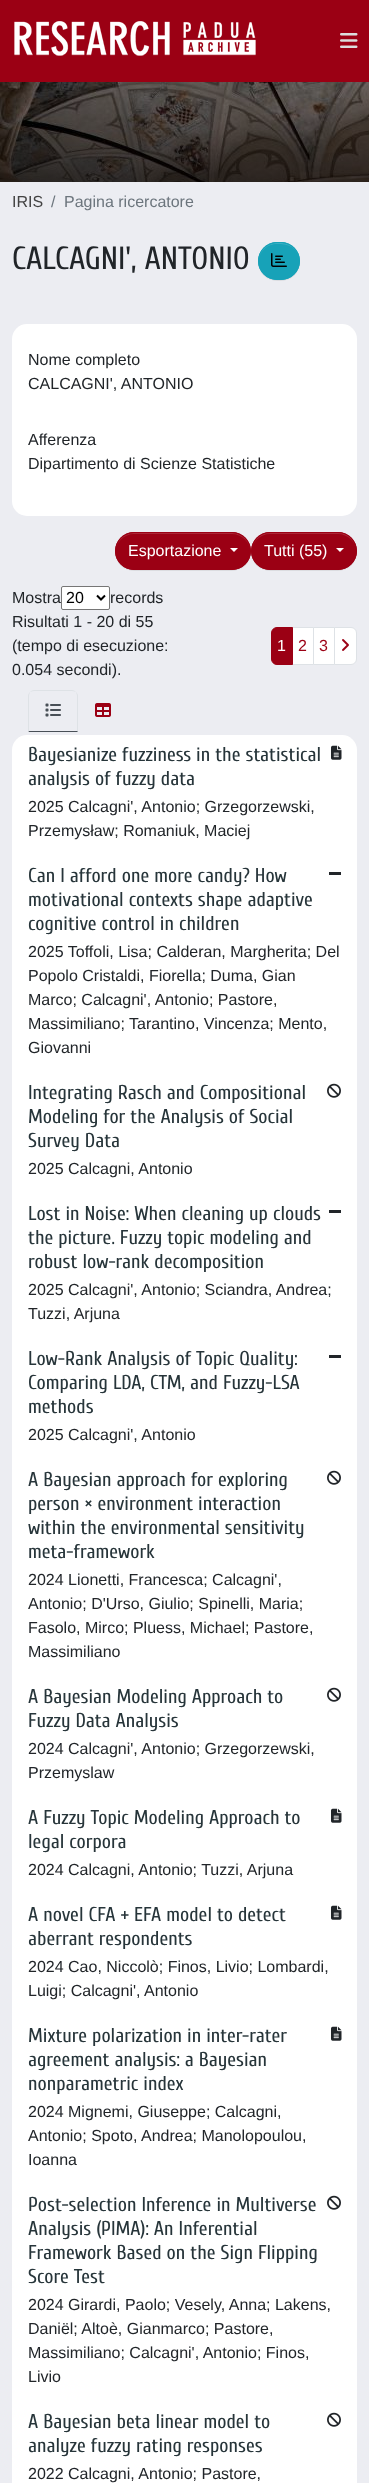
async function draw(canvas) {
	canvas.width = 369;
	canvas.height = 2483;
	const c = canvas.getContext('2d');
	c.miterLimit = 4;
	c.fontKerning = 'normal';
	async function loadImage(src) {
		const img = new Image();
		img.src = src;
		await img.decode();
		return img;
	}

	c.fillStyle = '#ecedf2';
	c.fillRect(0, 0, 369, 2483);
	c.fillStyle = '#9b0014';
	c.fillRect(0, 0, 369, 82);
	c.drawImage(await loadImage('img1.png'), 14, 21, 242, 35);
	c.drawImage(await loadImage('img2.png'), 340, 33, 18, 15);
	c.drawImage(await loadImage('img3.png'), 0, 82, 369, 100);
	c.font = '16px Liberation Sans';
	c.fillStyle = '#424242';
	c.fillText('IRIS', 12, 207);
	c.fillStyle = '#6c757d';
	c.fillText('/', 51, 207);
	c.fillText('Pagina ricercatore', 64, 207);
	c.font = '32px Cuprum';
	c.fillStyle = '#212529';
	c.fillText('CALCAGNI\', ANTONIO', 12, 269);
	c.fillStyle = '#00000012';
	c.filter = 'blur(0.5px)';
	c.beginPath();
	c.roundRect(258, 243, 42, 38, 19);
	c.fill();
	c.filter = 'none';
	c.fillStyle = '#17a2b8';
	c.beginPath();
	c.roundRect(258, 242, 42, 38, 19);
	c.fill();
	c.fillStyle = '#3ab0c3';
	c.beginPath();
	c.moveTo(277, 244);
	c.bezierCurveTo(287, 244, 296, 246, 299, 258);
	c.bezierCurveTo(295, 235, 256, 239, 259, 263);
	c.bezierCurveTo(258, 254, 265, 244, 277, 244);
	c.closePath();
	c.fill();
	c.beginPath();
	c.roundRect(258.5, 242.5, 41, 37, 18.5);
	c.strokeStyle = '#17a2b8';
	c.stroke();
	c.drawImage(await loadImage('img4.png'), 271, 253, 16, 14);
	c.fillStyle = '#fff';
	c.beginPath();
	c.roundRect(12, 324, 345, 192, 15);
	c.fill();
	c.font = '16px Liberation Sans';
	c.fillStyle = '#212529';
	for (const [text, x, y] of [
		['Nome completo', 28, 365],
		['CALCAGNI\', ANTONIO', 28, 389],
		['Afferenza', 28, 445],
		['Dipartimento di Scienze Statistiche', 28, 469],
	]) {
		c.fillText(text, x, y);
	}
	c.fillStyle = '#00000012';
	c.filter = 'blur(0.5px)';
	c.beginPath();
	c.roundRect(251, 533, 106, 38, 19);
	c.fill();
	c.filter = 'none';
	c.fillStyle = '#9b0014';
	c.beginPath();
	c.roundRect(251, 532, 106, 38, 19);
	c.fill();
	c.fillStyle = '#aa2637';
	c.beginPath();
	c.moveTo(270, 534);
	c.lineTo(338, 534);
	c.bezierCurveTo(348, 534, 356, 542, 356, 551);
	c.bezierCurveTo(356, 543, 350, 535, 342, 533);
	c.lineTo(327, 533);
	c.lineTo(266, 533);
	c.bezierCurveTo(258, 535, 252, 543, 252, 551);
	c.bezierCurveTo(252, 542, 260, 534, 270, 534);
	c.closePath();
	c.fill();
	c.beginPath();
	c.roundRect(251.5, 532.5, 105, 37, 18.5);
	c.strokeStyle = '#9b0014';
	c.stroke();
	c.fillStyle = '#00000012';
	c.filter = 'blur(0.5px)';
	c.beginPath();
	c.roundRect(115, 533, 136, 38, 19);
	c.fill();
	c.filter = 'none';
	c.fillStyle = '#9b0014';
	c.beginPath();
	c.roundRect(115, 532, 136, 38, 19);
	c.fill();
	c.fillStyle = '#aa2637';
	c.beginPath();
	c.moveTo(134, 534);
	c.lineTo(232, 534);
	c.bezierCurveTo(242, 534, 250, 542, 250, 551);
	c.bezierCurveTo(250, 541, 242, 533, 232, 533);
	c.lineTo(134, 533);
	c.bezierCurveTo(124, 533, 116, 541, 116, 551);
	c.bezierCurveTo(116, 542, 124, 534, 134, 534);
	c.closePath();
	c.fill();
	c.beginPath();
	c.roundRect(115.5, 532.5, 135, 37, 18.5);
	c.stroke();
	c.fillStyle = '#fff';
	c.fillText('Esportazione', 128, 556);
	c.beginPath();
	c.moveTo(230, 548);
	c.lineTo(238, 548);
	c.lineTo(234, 552);
	c.closePath();
	c.fill();
	c.fillText('Tutti (55)', 264, 556);
	c.beginPath();
	c.moveTo(336, 548);
	c.lineTo(344, 548);
	c.lineTo(340, 552);
	c.closePath();
	c.fill();
	c.fillStyle = '#212529';
	c.fillText('Mostra', 12, 603);
	c.fillStyle = '#fff';
	c.beginPath();
	c.roundRect(61.5, 586.5, 48, 23, 1.5);
	c.fill();
	c.strokeStyle = '#767676';
	c.stroke();
	c.beginPath();
	c.moveTo(97, 595.5);
	c.lineTo(101, 599.5);
	c.lineTo(105, 595.5);
	c.strokeStyle = '#000';
	c.lineWidth = 2;
	c.stroke();
	c.fillStyle = '#000';
	c.fillText('20', 66, 603);
	c.fillStyle = '#212529';
	for (const [text, x, y] of [
		['records', 110, 603],
		['Risultati 1 - 20 di 55', 12, 627],
		['(tempo di esecuzione:', 12, 651],
		['0.054 secondi).', 12, 675],
	]) {
		c.fillText(text, x, y);
	}
	c.fillStyle = '#fff';
	c.beginPath();
	c.rect(292.5, 627.5, 21, 37);
	c.fill();
	c.strokeStyle = '#dee2e6';
	c.lineWidth = 1;
	c.stroke();
	c.fillStyle = '#9b0014';
	c.beginPath();
	c.roundRect(271.5, 627.5, 21, 37, [5.5, 0, 0, 5.5]);
	c.fill();
	c.strokeStyle = '#9b0014';
	c.stroke();
	c.fillStyle = '#fff';
	c.fillText('1', 277, 651);
	c.fillStyle = '#9b0014';
	c.fillText('2', 298, 651);
	c.fillStyle = '#fff';
	c.beginPath();
	c.rect(313.5, 627.5, 21, 37);
	c.fill();
	c.strokeStyle = '#dee2e6';
	c.stroke();
	c.fillStyle = '#9b0014';
	c.fillText('3', 319, 651);
	c.fillStyle = '#fff';
	c.beginPath();
	c.roundRect(334.5, 627.5, 22, 37, [0, 5.5, 5.5, 0]);
	c.fill();
	c.stroke();
	c.drawImage(await loadImage('img5.png'), 342, 639, 7, 12);
	c.fillStyle = '#dee2e6';
	c.beginPath();
	c.moveTo(34, 690);
	c.bezierCurveTo(32, 690, 31, 691, 30, 692);
	c.bezierCurveTo(31, 692, 32, 691, 34, 691);
	c.lineTo(72, 691);
	c.bezierCurveTo(74, 691, 75, 692, 76, 692);
	c.bezierCurveTo(75, 691, 74, 690, 72, 690);
	c.closePath();
	c.moveTo(78, 732);
	c.lineTo(78, 696);
	c.bezierCurveTo(78, 694, 77, 693, 76, 692);
	c.bezierCurveTo(76, 693, 77, 694, 77, 696);
	c.lineTo(77, 731);
	c.closePath();
	c.fill();
	c.fillStyle = '#495057';
	c.beginPath();
	c.moveTo(78, 732);
	c.lineTo(77, 731);
	c.lineTo(29, 731);
	c.lineTo(28, 732);
	c.closePath();
	c.fill();
	c.fillStyle = '#dee2e6';
	c.beginPath();
	c.moveTo(28, 732);
	c.lineTo(29, 731);
	c.lineTo(29, 696);
	c.bezierCurveTo(29, 694, 30, 693, 30, 692);
	c.bezierCurveTo(29, 693, 28, 694, 28, 696);
	c.closePath();
	c.fill();
	c.drawImage(await loadImage('img6.png'), 45, 703, 16, 14);
	c.drawImage(await loadImage('img7.png'), 95, 703, 16, 14);
	c.fillStyle = '#fff';
	c.beginPath();
	c.roundRect(12, 735, 345, 120, [15, 15, 0, 0]);
	c.fill();
	c.fillRect(12, 855, 345, 1628);
	c.font = '20px Cuprum';
	c.fillStyle = '#27353a';
	c.fillText('Bayesianize fuzziness in the statistical', 28, 761);
	c.fillText('analysis of fuzzy data', 28, 785);
	c.drawImage(await loadImage('img8.png'), 331, 745, 11, 15);
	c.font = '16px Liberation Sans';
	c.fillStyle = '#212529';
	c.fillText('2025 Calcagni\', Antonio; Grzegorzewski,', 28, 812);
	c.fillText('Przemysław; Romaniuk, Maciej', 28, 836);
	c.font = '20px Cuprum';
	c.fillStyle = '#27353a';
	for (const [text, x, y] of [
		['Can I afford one more candy? How', 28, 882],
		['motivational contexts shape adaptive', 28, 906],
		['cognitive control in children', 28, 930],
	]) {
		c.fillText(text, x, y);
	}
	c.fillStyle = '#212529';
	c.fillRect(329, 872, 12, 3);
	c.font = '16px Liberation Sans';
	for (const [text, x, y] of [
		['2025 Toffoli, Lisa; Calderan, Margherita; Del', 28, 957],
		['Popolo Cristaldi, Fiorella; Duma, Gian', 28, 981],
		['Marco; Calcagni\', Antonio; Pastore,', 28, 1005],
		['Massimiliano; Tarantino, Vincenza; Mento,', 28, 1029],
		['Giovanni', 28, 1053],
	]) {
		c.fillText(text, x, y);
	}
	c.font = '20px Cuprum';
	c.fillStyle = '#27353a';
	for (const [text, x, y] of [
		['Integrating Rasch and Compositional', 28, 1099],
		['Modeling for the Analysis of Social', 28, 1123],
		['Survey Data', 28, 1147],
	]) {
		c.fillText(text, x, y);
	}
	c.drawImage(await loadImage('img9.png'), 327, 1083, 14, 15);
	c.font = '16px Liberation Sans';
	c.fillStyle = '#212529';
	c.fillText('2025 Calcagni, Antonio', 28, 1174);
	c.font = '20px Cuprum';
	c.fillStyle = '#27353a';
	for (const [text, x, y] of [
		['Lost in Noise: When cleaning up clouds', 28, 1220],
		['the picture. Fuzzy topic modeling and', 28, 1244],
		['robust low-rank decomposition', 28, 1268],
	]) {
		c.fillText(text, x, y);
	}
	c.fillStyle = '#212529';
	c.fillRect(329, 1210, 12, 3);
	c.font = '16px Liberation Sans';
	c.fillText('2025 Calcagni\', Antonio; Sciandra, Andrea;', 28, 1295);
	c.fillText('Tuzzi, Arjuna', 28, 1319);
	c.font = '20px Cuprum';
	c.fillStyle = '#27353a';
	for (const [text, x, y] of [
		['Low-Rank Analysis of Topic Quality:', 28, 1365],
		['Comparing LDA, CTM, and Fuzzy-LSA', 28, 1389],
		['methods', 28, 1413],
	]) {
		c.fillText(text, x, y);
	}
	c.fillStyle = '#212529';
	c.fillRect(329, 1355, 12, 3);
	c.font = '16px Liberation Sans';
	c.fillText('2025 Calcagni\', Antonio', 28, 1440);
	c.font = '20px Cuprum';
	c.fillStyle = '#27353a';
	for (const [text, x, y] of [
		['A Bayesian approach for exploring', 28, 1486],
		['person × environment interaction', 28, 1510],
		['within the environmental sensitivity', 28, 1534],
		['meta-framework', 28, 1558],
	]) {
		c.fillText(text, x, y);
	}
	c.drawImage(await loadImage('img9.png'), 327, 1470, 14, 15);
	c.font = '16px Liberation Sans';
	c.fillStyle = '#212529';
	for (const [text, x, y] of [
		['2024 Lionetti, Francesca; Calcagni\',', 28, 1585],
		['Antonio; D\'Urso, Giulio; Spinelli, Maria;', 28, 1609],
		['Fasolo, Mirco; Pluess, Michael; Pastore,', 28, 1633],
		['Massimiliano', 28, 1657],
	]) {
		c.fillText(text, x, y);
	}
	c.font = '20px Cuprum';
	c.fillStyle = '#27353a';
	c.fillText('A Bayesian Modeling Approach to', 28, 1703);
	c.fillText('Fuzzy Data Analysis', 28, 1727);
	c.drawImage(await loadImage('img9.png'), 327, 1687, 14, 15);
	c.font = '16px Liberation Sans';
	c.fillStyle = '#212529';
	c.fillText('2024 Calcagni\', Antonio; Grzegorzewski,', 28, 1754);
	c.fillText('Przemyslaw', 28, 1778);
	c.font = '20px Cuprum';
	c.fillStyle = '#27353a';
	c.fillText('A Fuzzy Topic Modeling Approach to', 28, 1824);
	c.fillText('legal corpora', 28, 1848);
	c.drawImage(await loadImage('img8.png'), 331, 1808, 11, 15);
	c.font = '16px Liberation Sans';
	c.fillStyle = '#212529';
	c.fillText('2024 Calcagni, Antonio; Tuzzi, Arjuna', 28, 1875);
	c.font = '20px Cuprum';
	c.fillStyle = '#27353a';
	c.fillText('A novel CFA + EFA model to detect', 28, 1921);
	c.fillText('aberrant respondents', 28, 1945);
	c.drawImage(await loadImage('img8.png'), 331, 1905, 11, 15);
	c.font = '16px Liberation Sans';
	c.fillStyle = '#212529';
	c.fillText('2024 Cao, Niccolò; Finos, Livio; Lombardi,', 28, 1972);
	c.fillText('Luigi; Calcagni\', Antonio', 28, 1996);
	c.font = '20px Cuprum';
	c.fillStyle = '#27353a';
	for (const [text, x, y] of [
		['Mixture polarization in inter-rater', 28, 2042],
		['agreement analysis: a Bayesian', 28, 2066],
		['nonparametric index', 28, 2090],
	]) {
		c.fillText(text, x, y);
	}
	c.drawImage(await loadImage('img8.png'), 331, 2026, 11, 15);
	c.font = '16px Liberation Sans';
	c.fillStyle = '#212529';
	for (const [text, x, y] of [
		['2024 Mignemi, Giuseppe; Calcagni,', 28, 2117],
		['Antonio; Spoto, Andrea; Manolopoulou,', 28, 2141],
		['Ioanna', 28, 2165],
	]) {
		c.fillText(text, x, y);
	}
	c.font = '20px Cuprum';
	c.fillStyle = '#27353a';
	for (const [text, x, y] of [
		['Post-selection Inference in Multiverse', 28, 2211],
		['Analysis (PIMA): An Inferential', 28, 2235],
		['Framework Based on the Sign Flipping', 28, 2259],
		['Score Test', 28, 2283],
	]) {
		c.fillText(text, x, y);
	}
	c.drawImage(await loadImage('img9.png'), 327, 2195, 14, 15);
	c.font = '16px Liberation Sans';
	c.fillStyle = '#212529';
	for (const [text, x, y] of [
		['2024 Girardi, Paolo; Vesely, Anna; Lakens,', 28, 2310],
		['Daniël; Altoè, Gianmarco; Pastore,', 28, 2334],
		['Massimiliano; Calcagni\', Antonio; Finos,', 28, 2358],
		['Livio', 28, 2382],
	]) {
		c.fillText(text, x, y);
	}
	c.font = '20px Cuprum';
	c.fillStyle = '#27353a';
	c.fillText('A Bayesian beta linear model to', 28, 2428);
	c.fillText('analyze fuzzy rating responses', 28, 2452);
	c.drawImage(await loadImage('img9.png'), 327, 2412, 14, 15);
	c.font = '16px Liberation Sans';
	c.fillStyle = '#212529';
	c.fillText('2022 Calcagni, Antonio; Pastore,', 28, 2479);
}

draw(document.querySelector('canvas'));
